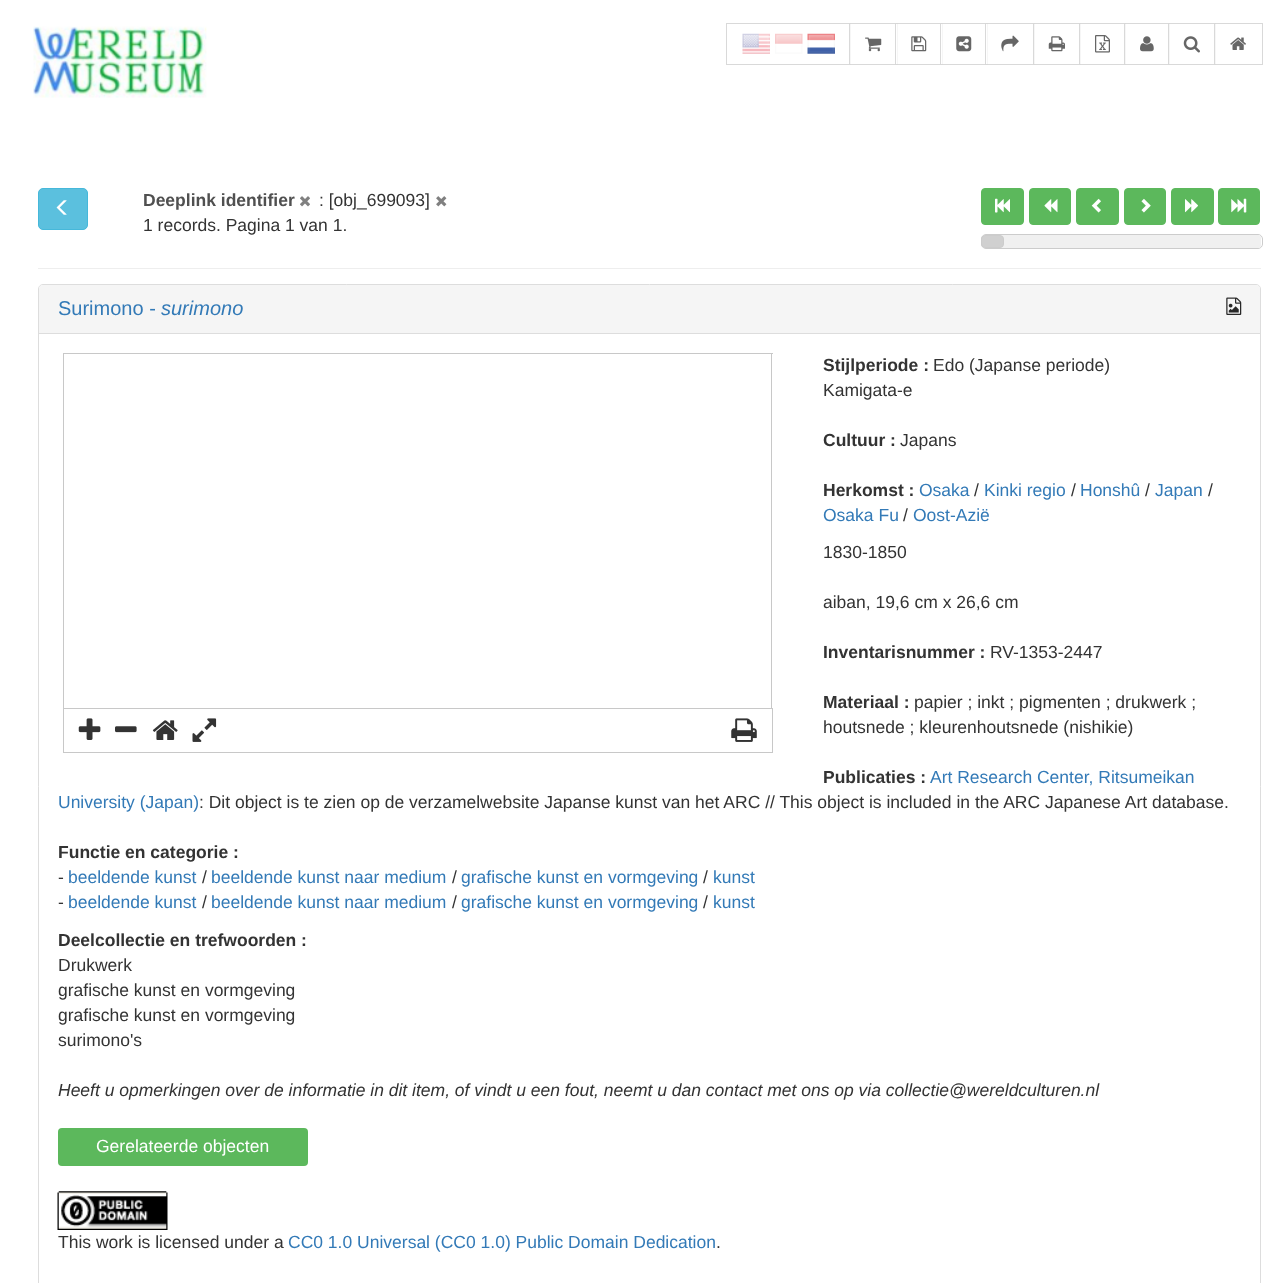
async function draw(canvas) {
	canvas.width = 1283;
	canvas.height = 1283;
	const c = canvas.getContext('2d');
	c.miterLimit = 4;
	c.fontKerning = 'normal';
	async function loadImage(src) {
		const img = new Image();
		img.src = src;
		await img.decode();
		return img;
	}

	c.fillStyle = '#fff';
	c.fillRect(0, 0, 1283, 1283);
	c.drawImage(await loadImage('img1.png'), 33, 26, 174, 72);
	c.strokeStyle = '#d9d9d9';
	c.strokeRect(726.5, 23.5, 124, 41);
	c.drawImage(await loadImage('img2.png'), 742, 33, 28, 21);
	c.drawImage(await loadImage('img3.png'), 775, 33, 28, 21);
	c.drawImage(await loadImage('img4.png'), 807, 33, 28, 21);
	c.fillStyle = '#ffffffbf';
	c.fillRect(849, 23, 2, 42);
	c.strokeStyle = '#ccccccbf';
	c.strokeRect(849.5, 23.5, 48, 41);
	c.drawImage(await loadImage('img5.png'), 865, 37, 17, 15);
	c.fillRect(895, 23, 3, 42);
	c.strokeRect(895.5, 23.5, 47, 41);
	c.drawImage(await loadImage('img6.png'), 911, 36, 16, 16);
	c.fillRect(940, 23, 3, 42);
	c.strokeRect(940.5, 23.5, 47, 41);
	c.drawImage(await loadImage('img7.png'), 956, 36, 16, 16);
	c.fillRect(985, 23, 3, 42);
	c.strokeRect(985.5, 23.5, 49, 41);
	c.drawImage(await loadImage('img8.png'), 1001, 35, 18, 17);
	c.fillRect(1033, 23, 2, 42);
	c.strokeRect(1033.5, 23.5, 47, 41);
	c.drawImage(await loadImage('img9.png'), 1048, 36, 17, 16);
	c.fillRect(1079, 23, 2, 42);
	c.strokeRect(1079.5, 23.5, 46, 41);
	c.drawImage(await loadImage('img10.png'), 1095, 35, 15, 18);
	c.fillRect(1124, 23, 2, 42);
	c.strokeRect(1124.5, 23.5, 45, 41);
	c.drawImage(await loadImage('img11.png'), 1140, 36, 14, 16);
	c.fillRect(1168, 23, 2, 42);
	c.strokeRect(1168.5, 23.5, 47, 41);
	c.drawImage(await loadImage('img12.png'), 1183, 36, 17, 17);
	c.fillRect(1214, 23, 2, 42);
	c.strokeRect(1214.5, 23.5, 48, 41);
	c.drawImage(await loadImage('img13.png'), 1230, 37, 16, 13);
	c.fillStyle = '#5bc0de';
	c.beginPath();
	c.roundRect(38.5, 188.5, 49, 41, 4.5);
	c.fill();
	c.strokeStyle = '#46b8da';
	c.stroke();
	c.drawImage(await loadImage('img14.png'), 56, 200, 11, 15);
	c.font = 'bold 17.5px Liberation Sans';
	c.fillStyle = '#505050';
	c.fillText('Deeplink identifier', 143, 206);
	c.drawImage(await loadImage('img15.png'), 300, 196, 10, 11);
	c.font = '17.5px Liberation Sans';
	c.fillStyle = '#333';
	c.fillText(': [obj_699093]', 319, 206);
	c.drawImage(await loadImage('img16.png'), 436, 196, 11, 11);
	c.fillText('1 records. Pagina 1 van 1.', 143, 231);
	c.fillStyle = '#5cb85c';
	c.beginPath();
	c.roundRect(981.5, 188.5, 42, 36, 3.5);
	c.fill();
	c.strokeStyle = '#5cb85c';
	c.stroke();
	c.drawImage(await loadImage('img17.png'), 995, 198, 15, 15);
	c.beginPath();
	c.roundRect(1029.5, 188.5, 41, 36, 3.5);
	c.fill();
	c.stroke();
	c.drawImage(await loadImage('img18.png'), 1044, 199, 14, 14);
	c.beginPath();
	c.roundRect(1076.5, 188.5, 42, 36, 3.5);
	c.fill();
	c.stroke();
	c.drawImage(await loadImage('img19.png'), 1091, 198, 10, 15);
	c.beginPath();
	c.roundRect(1124.5, 188.5, 41, 36, 3.5);
	c.fill();
	c.stroke();
	c.drawImage(await loadImage('img20.png'), 1141, 198, 10, 15);
	c.beginPath();
	c.roundRect(1171.5, 188.5, 42, 36, 3.5);
	c.fill();
	c.stroke();
	c.drawImage(await loadImage('img21.png'), 1185, 199, 13, 14);
	c.beginPath();
	c.roundRect(1218.5, 188.5, 41, 36, 3.5);
	c.fill();
	c.stroke();
	c.drawImage(await loadImage('img22.png'), 1231, 198, 16, 15);
	c.beginPath();
	c.roundRect(981.5, 234.5, 281, 14, 4.5);
	c.strokeStyle = '#ccc';
	c.stroke();
	c.fillStyle = '#f0f0f0';
	c.beginPath();
	c.roundRect(983, 235, 278, 13, 2.5);
	c.fill();
	c.fillStyle = '#d0d0d0';
	c.beginPath();
	c.roundRect(981.5, 235.5, 22, 12, 3.5);
	c.fill();
	c.stroke();
	c.fillStyle = '#eee';
	c.fillRect(38, 268, 1223, 1);
	c.beginPath();
	c.roundRect(38.5, 284.5, 1222, 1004, 4.5);
	c.strokeStyle = '#ddd';
	c.stroke();
	c.fillStyle = '#f5f5f5';
	c.beginPath();
	c.roundRect(39, 285, 1221, 49, [4, 4, 0, 0]);
	c.fill();
	c.fillStyle = '#ddd';
	c.fillRect(39, 333, 1221, 1);
	c.font = '20px Liberation Sans';
	c.fillStyle = '#337ab7';
	c.fillText('Surimono -', 58, 315);
	c.font = 'italic 20px Liberation Sans';
	c.fillText('surimono', 161, 315);
	c.drawImage(await loadImage('img23.png'), 1226, 297, 16, 18);
	for (const [x, y, w, h, color] of [
		[63, 353, 710, 1, '#c8c8c8'],
		[771, 353, 1, 355, '#c8c8c8'],
		[63, 353, 1, 355, '#c8c8c8'],
	]) {
		c.fillStyle = color;
		c.fillRect(x, y, w, h);
	}
	c.strokeStyle = '#c8c8c8';
	c.strokeRect(63.5, 708.5, 709, 44);
	c.drawImage(await loadImage('img24.png'), 78, 718, 23, 22);
	c.drawImage(await loadImage('img25.png'), 115, 726, 22, 7);
	c.drawImage(await loadImage('img26.png'), 152, 720, 26, 20);
	c.drawImage(await loadImage('img27.png'), 192, 718, 25, 24);
	c.drawImage(await loadImage('img28.png'), 731, 718, 26, 24);
	c.font = 'bold 17.5px Liberation Sans';
	c.fillStyle = '#333';
	c.fillText('Stijlperiode :', 823, 371);
	c.font = '17.5px Liberation Sans';
	c.fillText('Edo (Japanse periode)', 933, 371);
	c.fillText('Kamigata-e', 823, 396);
	c.font = 'bold 17.5px Liberation Sans';
	c.fillText('Cultuur :', 823, 446);
	c.font = '17.5px Liberation Sans';
	c.fillText('Japans', 900, 446);
	c.font = 'bold 17.5px Liberation Sans';
	c.fillText('Herkomst :', 823, 496);
	c.font = '17.5px Liberation Sans';
	c.fillStyle = '#337ab7';
	c.fillText('Osaka', 919, 496);
	c.fillStyle = '#333';
	c.fillText('/', 974, 496);
	c.fillStyle = '#337ab7';
	c.fillText('Kinki regio', 984, 496);
	c.fillStyle = '#333';
	c.fillText('/', 1071, 496);
	c.fillStyle = '#337ab7';
	c.fillText('Honshû', 1080, 496);
	c.fillStyle = '#333';
	c.fillText('/', 1145, 496);
	c.fillStyle = '#337ab7';
	c.fillText('Japan', 1155, 496);
	c.fillStyle = '#333';
	c.fillText('/', 1208, 496);
	c.fillStyle = '#337ab7';
	c.fillText('Osaka Fu', 823, 521);
	c.fillStyle = '#333';
	c.fillText('/', 903, 521);
	c.fillStyle = '#337ab7';
	c.fillText('Oost-Azië', 913, 521);
	c.fillStyle = '#333';
	c.fillText('1830-1850', 823, 558);
	c.fillText('aiban, 19,6 cm x 26,6 cm', 823, 608);
	c.font = 'bold 17.5px Liberation Sans';
	c.fillText('Inventarisnummer :', 823, 658);
	c.font = '17.5px Liberation Sans';
	c.fillText('RV-1353-2447', 990, 658);
	c.font = 'bold 17.5px Liberation Sans';
	c.fillText('Materiaal :', 823, 708);
	c.font = '17.5px Liberation Sans';
	c.fillText('papier ; inkt ; pigmenten ; drukwerk ;', 914, 708);
	c.fillText('houtsnede ; kleurenhoutsnede (nishikie)', 823, 733);
	c.font = 'bold 17.5px Liberation Sans';
	c.fillText('Publicaties :', 823, 783);
	c.font = '17.5px Liberation Sans';
	c.fillStyle = '#337ab7';
	c.fillText('Art Research Center, Ritsumeikan', 930, 783);
	c.fillText('University (Japan)', 58, 808);
	c.fillStyle = '#333';
	c.fillText(': Dit object is te zien op de verzamelwebsite Japanse kunst van het ARC // This object is included in the ARC Japanese Art database.', 199, 808);
	c.font = 'bold 17.5px Liberation Sans';
	c.fillText('Functie en categorie :', 58, 858);
	c.font = '17.5px Liberation Sans';
	c.fillText('-', 58, 883);
	c.fillStyle = '#337ab7';
	c.fillText('beeldende kunst', 68, 883);
	c.fillStyle = '#333';
	c.fillText('/', 202, 883);
	c.fillStyle = '#337ab7';
	c.fillText('beeldende kunst naar medium', 211, 883);
	c.fillStyle = '#333';
	c.fillText('/', 452, 883);
	c.fillStyle = '#337ab7';
	c.fillText('grafische kunst en vormgeving', 461, 883);
	c.fillStyle = '#333';
	c.fillText('/', 703, 883);
	c.fillStyle = '#337ab7';
	c.fillText('kunst', 713, 883);
	c.fillStyle = '#333';
	c.fillText('-', 58, 908);
	c.fillStyle = '#337ab7';
	c.fillText('beeldende kunst', 68, 908);
	c.fillStyle = '#333';
	c.fillText('/', 202, 908);
	c.fillStyle = '#337ab7';
	c.fillText('beeldende kunst naar medium', 211, 908);
	c.fillStyle = '#333';
	c.fillText('/', 452, 908);
	c.fillStyle = '#337ab7';
	c.fillText('grafische kunst en vormgeving', 461, 908);
	c.fillStyle = '#333';
	c.fillText('/', 703, 908);
	c.fillStyle = '#337ab7';
	c.fillText('kunst', 713, 908);
	c.font = 'bold 17.5px Liberation Sans';
	c.fillStyle = '#333';
	c.fillText('Deelcollectie en trefwoorden :', 58, 946);
	c.font = '17.5px Liberation Sans';
	for (const [text, x, y] of [
		['Drukwerk', 58, 971],
		['grafische kunst en vormgeving', 58, 996],
		['grafische kunst en vormgeving', 58, 1021],
		['surimono\'s', 58, 1046],
	]) {
		c.fillText(text, x, y);
	}
	c.font = 'italic 17.5px Liberation Sans';
	c.fillText('Heeft u opmerkingen over de informatie in dit item, of vindt u een fout, neemt u dan contact met ons op via collectie@wereldculturen.nl', 58, 1096);
	c.fillStyle = '#5cb85c';
	c.beginPath();
	c.roundRect(58, 1128, 250, 38, 4);
	c.fill();
	c.font = '17.5px Liberation Sans';
	c.fillStyle = '#fff';
	c.fillText('Gerelateerde objecten', 96, 1152);
	c.drawImage(await loadImage('img29.png'), 57, 1191, 111, 39);
	c.fillStyle = '#333';
	c.fillText('This work is licensed under a', 58, 1248);
	c.fillStyle = '#337ab7';
	c.fillText('CC0 1.0 Universal (CC0 1.0) Public Domain Dedication', 288, 1248);
	c.fillStyle = '#333';
	c.fillText('.', 716, 1248);
}

draw(document.querySelector('canvas'));
